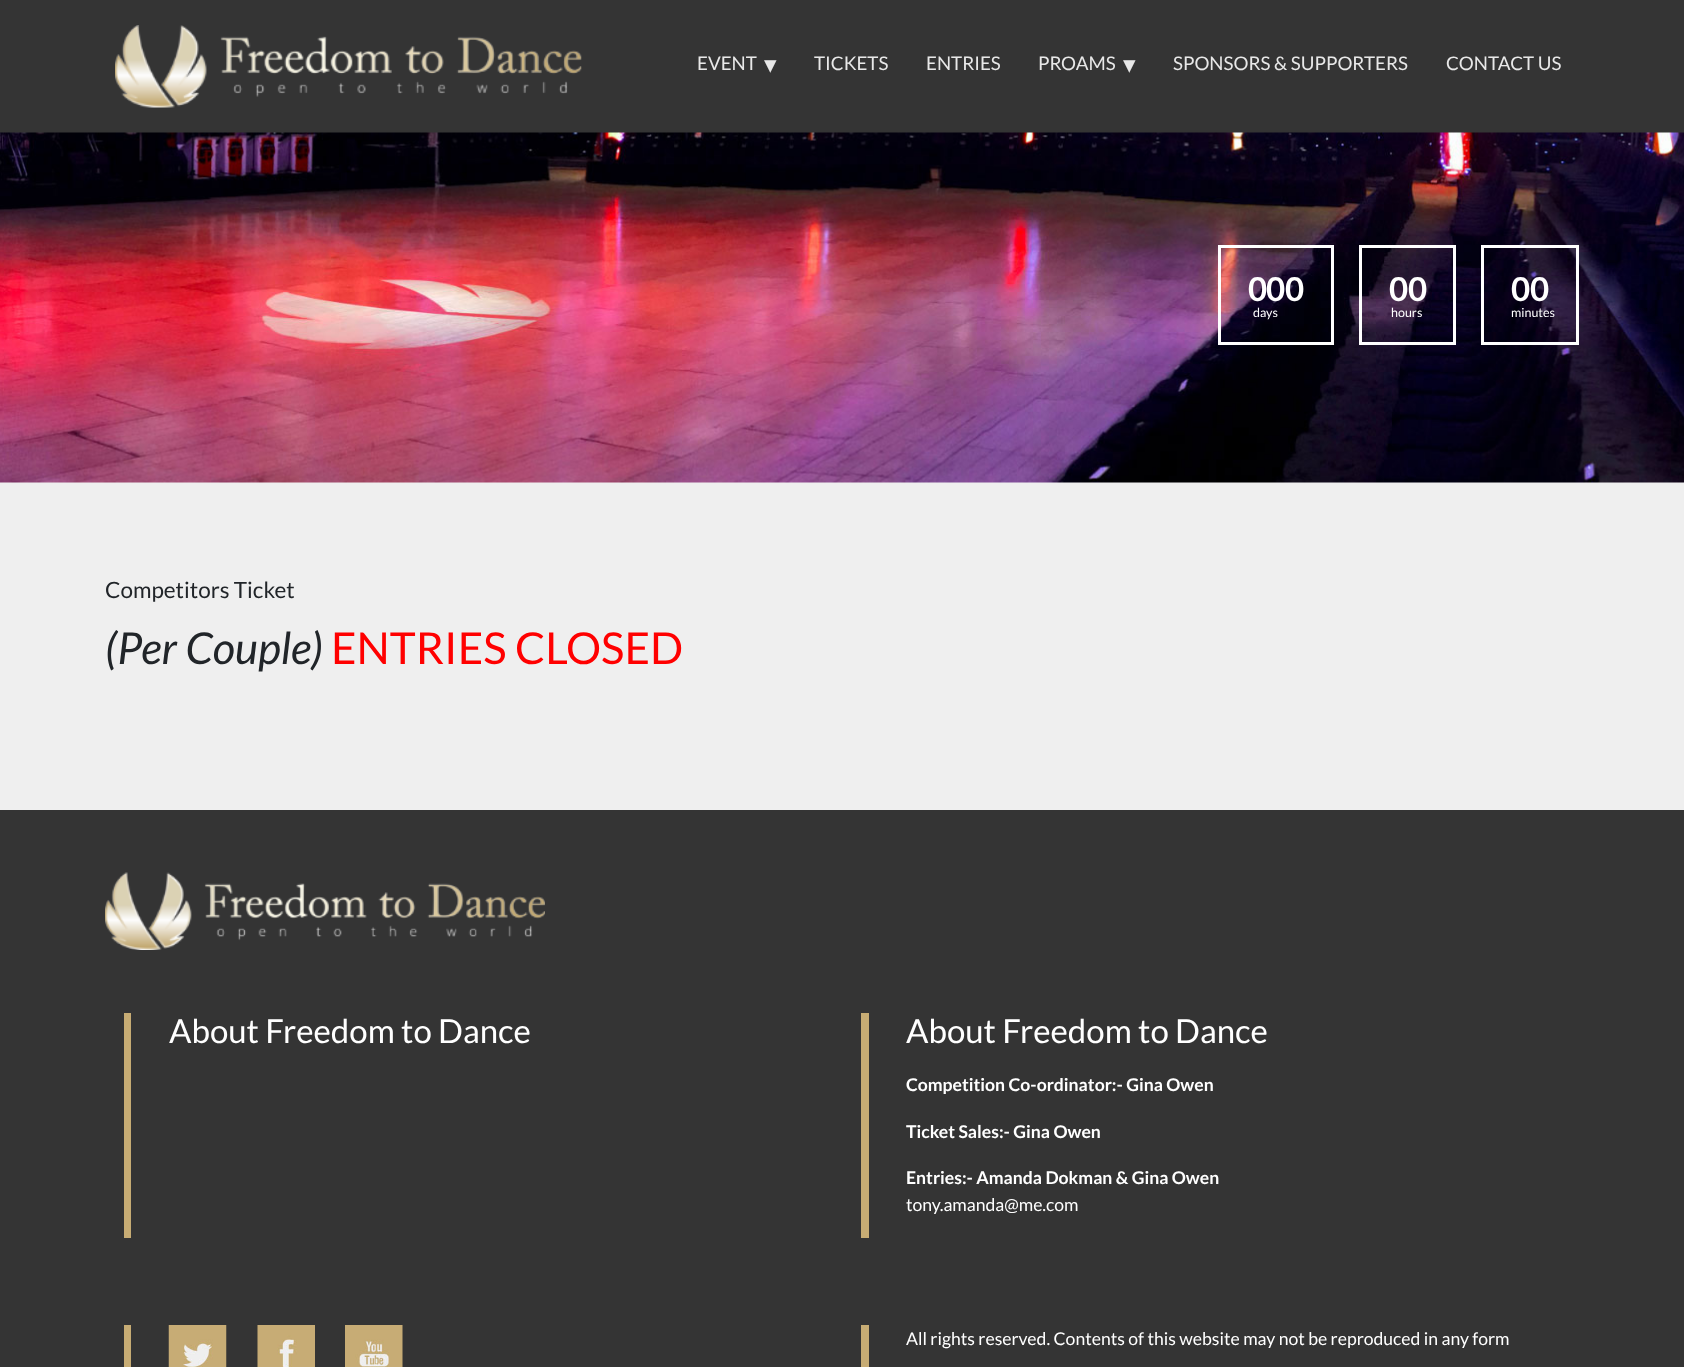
async function draw(canvas) {
	canvas.width = 1684;
	canvas.height = 1367;
	const c = canvas.getContext('2d');
	c.miterLimit = 4;
	c.fontKerning = 'normal';
	async function loadImage(src) {
		const img = new Image();
		img.src = src;
		await img.decode();
		return img;
	}

	c.fillStyle = '#efefef';
	c.fillRect(0, 0, 1684, 1367);
	c.fillStyle = '#343434';
	c.fillRect(0, 0, 1684, 133);
	c.drawImage(await loadImage('img1.png'), 115, 25, 467, 83);
	c.font = '18.75px Lato';
	c.fillStyle = '#e8e8e8';
	c.fillText('EVENT', 697, 70);
	c.font = '25px DejaVu Sans';
	c.fillText('▾', 764, 73);
	c.font = '18.75px Lato';
	for (const [text, x, y] of [
		['TICKETS', 814, 70],
		['ENTRIES', 926, 70],
		['PROAMS', 1038, 70],
	]) {
		c.fillText(text, x, y);
	}
	c.font = '25px DejaVu Sans';
	c.fillText('▾', 1123, 73);
	c.font = '18.75px Lato';
	c.fillText('SPONSORS & SUPPORTERS', 1173, 70);
	c.fillText('CONTACT US', 1446, 70);
	c.drawImage(await loadImage('img2.png'), 0, 132, 1684, 351);
	c.strokeStyle = '#fff';
	c.lineWidth = 3;
	c.strokeRect(1219.5, 246.5, 113, 97);
	c.font = 'bold 33px Lato';
	c.fillStyle = '#fff';
	for (const [text, x, y] of [
		['0', 1248, 301],
		['0', 1266, 301],
		['0', 1285, 301],
	]) {
		c.fillText(text, x, y);
	}
	c.font = '12.5px Lato';
	c.fillText('days', 1253, 317);
	c.strokeRect(1360.5, 246.5, 94, 97);
	c.font = 'bold 33px Lato';
	c.fillText('0', 1389, 301);
	c.fillText('0', 1408, 301);
	c.font = '12.5px Lato';
	c.fillText('hours', 1391, 317);
	c.strokeRect(1482.5, 246.5, 95, 97);
	c.font = 'bold 33px Lato';
	c.fillText('0', 1511, 301);
	c.fillText('0', 1530, 301);
	c.font = '12.5px Lato';
	c.fillText('minutes', 1511, 317);
	c.font = '22.5px Lato';
	c.fillStyle = '#212529';
	c.fillText('Competitors Ticket', 105, 598);
	c.font = 'italic 44px Lato';
	c.fillText('(Per Couple)', 105, 664);
	c.font = '44px Lato';
	c.fillStyle = '#f00';
	c.fillText('ENTRIES CLOSED', 331, 664);
	c.fillStyle = '#343434';
	c.fillRect(0, 810, 1684, 557);
	c.drawImage(await loadImage('img3.png'), 105, 872, 440, 78);
	c.fillStyle = '#c7ac74';
	c.fillRect(124, 1013, 7, 225);
	c.font = '33px Lato';
	c.fillStyle = '#fff';
	c.fillText('About Freedom to Dance', 169, 1043);
	c.fillStyle = '#c7ac74';
	c.fillRect(861, 1013, 8, 225);
	c.fillStyle = '#fff';
	c.fillText('About Freedom to Dance', 906, 1043);
	c.font = 'bold 17.6px Lato';
	for (const [text, x, y] of [
		['Competition Co-ordinator:- Gina Owen', 906, 1091],
		['Ticket Sales:- Gina Owen', 906, 1138],
		['Entries:- Amanda Dokman & Gina Owen', 906, 1184],
	]) {
		c.fillText(text, x, y);
	}
	c.font = '17.6px Lato';
	c.fillText('tony.amanda@me.com', 906, 1211);
	c.fillStyle = '#c7ac74';
	c.fillRect(124, 1325, 7, 42);
	c.drawImage(await loadImage('img4.png'), 168, 1325, 59, 42);
	c.drawImage(await loadImage('img5.png'), 257, 1325, 58, 42);
	c.drawImage(await loadImage('img6.png'), 345, 1325, 58, 42);
	c.fillRect(861, 1325, 8, 42);
	c.fillStyle = '#fff';
	c.fillText('All rights reserved. Contents of this website may not be reproduced in any form', 906, 1345);
}

draw(document.querySelector('canvas'));
